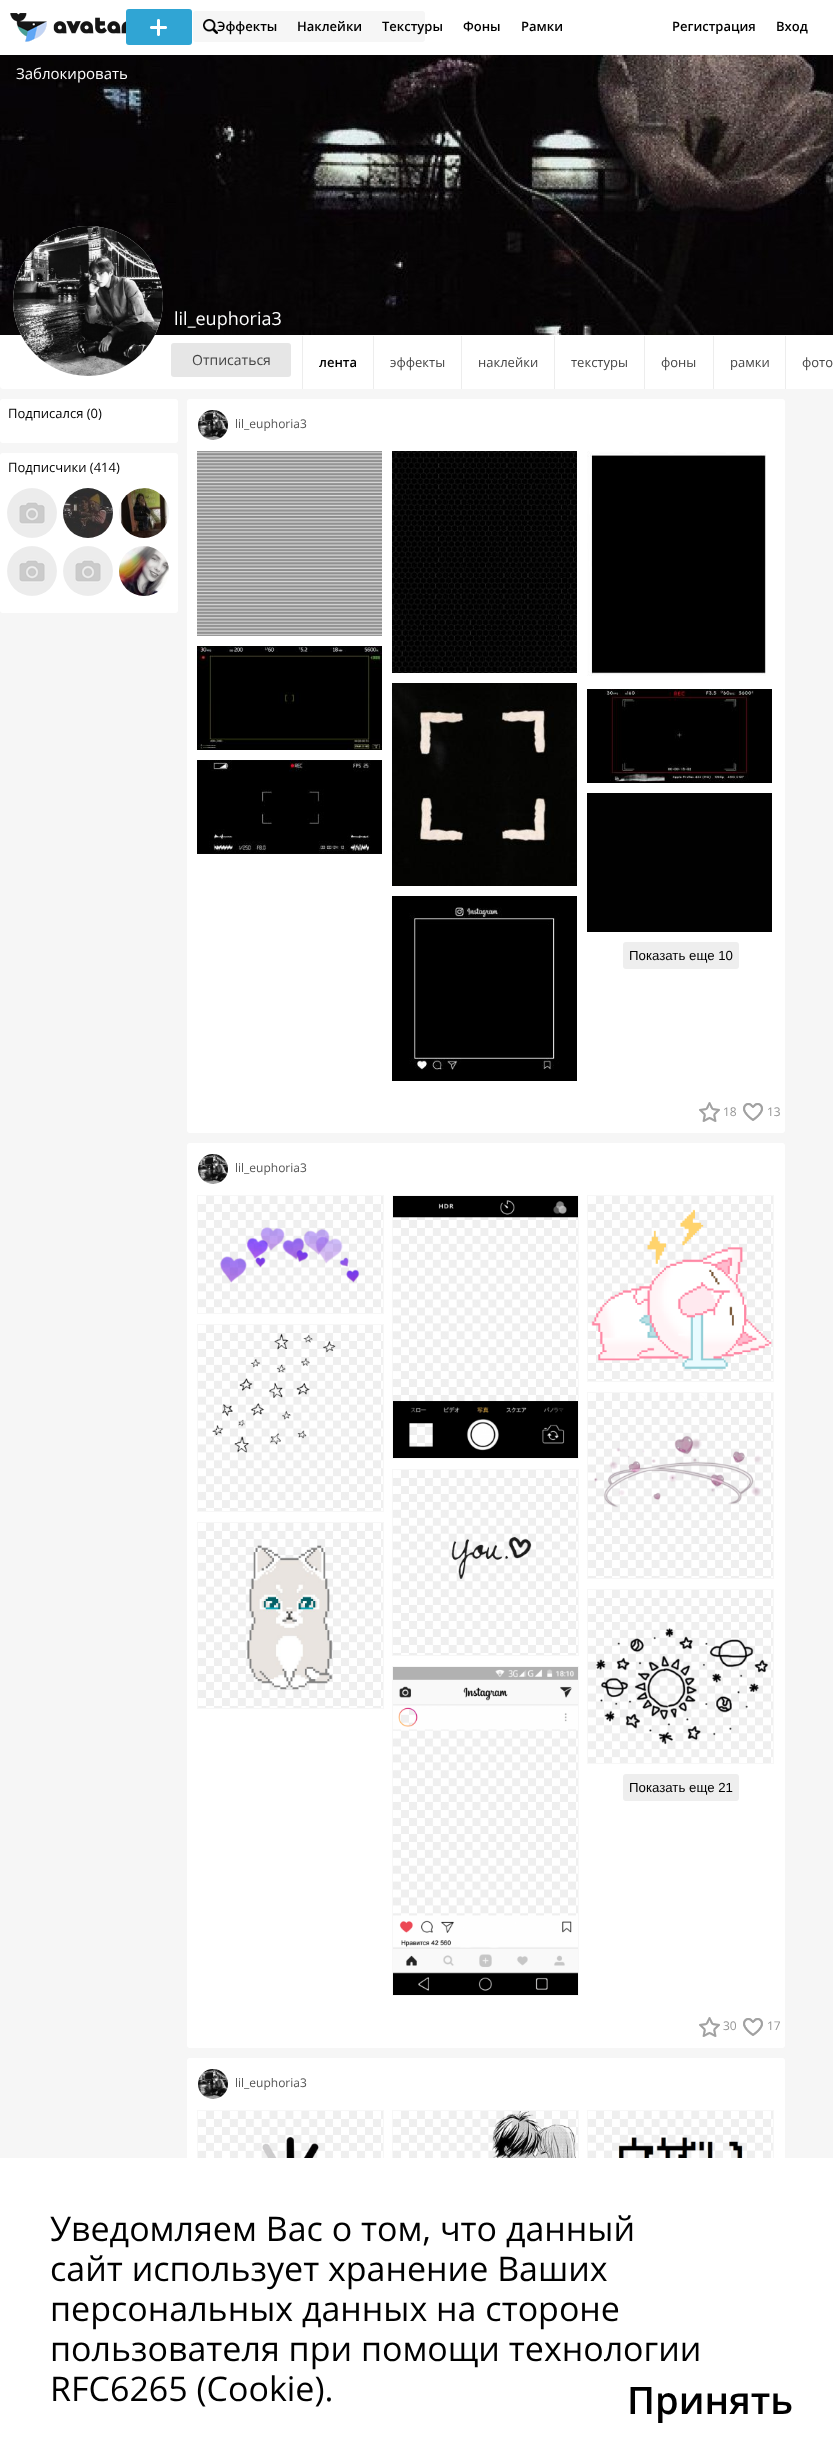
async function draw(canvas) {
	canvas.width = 833;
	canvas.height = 2458;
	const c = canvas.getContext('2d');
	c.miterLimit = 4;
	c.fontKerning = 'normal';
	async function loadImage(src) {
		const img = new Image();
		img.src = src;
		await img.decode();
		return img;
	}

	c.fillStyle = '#f6f6f6';
	c.fillRect(0, 0, 833, 2458);
	c.drawImage(await loadImage('img4.png'), 0, 55, 833, 280);
	c.fillStyle = '#0000004d';
	c.filter = 'blur(0.5px)';
	c.beginPath();
	c.rect(0, 0, 833, 55);
	c.fill();
	c.filter = 'none';
	c.fillStyle = '#fff';
	c.fillRect(0, 0, 833, 55);
	c.drawImage(await loadImage('img1.png'), 10, 13, 116, 29);
	c.fillStyle = '#f6f6f6';
	c.beginPath();
	c.roundRect(193, 11, 232, 31, 3);
	c.fill();
	c.drawImage(await loadImage('img2.png'), 203, 19, 15, 15);
	c.fillStyle = '#30a5d4';
	c.beginPath();
	c.roundRect(126, 9, 66, 36, 3);
	c.fill();
	c.drawImage(await loadImage('img3.png'), 150, 19, 17, 17);
	c.font = '600 13px Open Sans';
	c.fillStyle = '#000';
	for (const [text, x, y] of [
		['Эффекты', 217, 31],
		['Наклейки', 297, 31],
		['Текстуры', 382, 31],
		['Фоны', 463, 31],
		['Рамки', 521, 31],
		['Регистрация', 672, 31],
		['Вход', 776, 31],
	]) {
		c.fillText(text, x, y);
	}
	c.font = '15px Open Sans';
	c.fillStyle = '#fff';
	c.fillText('Заблокировать', 16, 79);
	c.beginPath();
	c.moveTo(0, 335);
	c.lineTo(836, 335);
	c.lineTo(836, 386);
	c.bezierCurveTo(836, 387.5, 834.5, 389, 833, 389);
	c.lineTo(3, 389);
	c.bezierCurveTo(1.5, 389, 0, 387.5, 0, 386);
	c.closePath();
	c.fill();
	c.beginPath();
	c.arc(88, 301, 75, 0, 2 * Math.PI);
	c.fill();
	c.drawImage(await loadImage('img5.png'), 13, 226, 150, 150);
	c.font = '18px Open Sans';
	c.fillText('lil_euphoria3', 174, 325);
	c.fillStyle = '#e6e6e6';
	c.beginPath();
	c.roundRect(171, 343, 120, 34, 3);
	c.fill();
	c.font = '14px Open Sans';
	c.fillStyle = '#444';
	c.fillText('Отписаться', 192, 365);
	c.fillStyle = '#ededed';
	c.fillRect(302, 336, 1, 53);
	c.font = '600 13px Open Sans';
	c.fillStyle = '#000';
	c.fillText('лента', 319, 367);
	c.fillStyle = '#ededed';
	c.fillRect(373, 336, 1, 53);
	c.font = '13px Open Sans';
	c.fillStyle = '#444';
	c.fillText('эффекты', 390, 367);
	c.fillStyle = '#ededed';
	c.fillRect(461, 336, 1, 53);
	c.fillStyle = '#444';
	c.fillText('наклейки', 478, 367);
	c.fillStyle = '#ededed';
	c.fillRect(554, 336, 1, 53);
	c.fillStyle = '#444';
	c.fillText('текстуры', 571, 367);
	c.fillStyle = '#ededed';
	c.fillRect(644, 336, 1, 53);
	c.fillStyle = '#444';
	c.fillText('фоны', 661, 367);
	c.fillStyle = '#ededed';
	c.fillRect(713, 336, 1, 53);
	c.fillStyle = '#444';
	c.fillText('рамки', 730, 367);
	c.fillStyle = '#ededed';
	c.fillRect(785, 336, 1, 53);
	c.fillStyle = '#444';
	c.fillText('фото', 802, 367);
	c.fillStyle = '#fff';
	c.beginPath();
	c.roundRect(0, 399, 178, 44, 3);
	c.fill();
	c.fillStyle = '#000';
	c.fillText('Подписался (0)', 8, 418);
	c.fillStyle = '#fff';
	c.beginPath();
	c.roundRect(0, 453, 178, 160, 3);
	c.fill();
	c.fillStyle = '#000';
	c.fillText('Подписчики (414)', 8, 472);
	c.drawImage(await loadImage('img6.png'), 7, 488, 50, 50);
	c.drawImage(await loadImage('img7.png'), 63, 488, 50, 50);
	c.drawImage(await loadImage('img8.png'), 119, 488, 50, 50);
	c.drawImage(await loadImage('img9.png'), 7, 546, 50, 50);
	c.drawImage(await loadImage('img9.png'), 63, 546, 50, 50);
	c.drawImage(await loadImage('img10.png'), 119, 546, 50, 50);
	c.fillStyle = '#fff';
	c.beginPath();
	c.roundRect(187, 399, 598, 734, 3);
	c.fill();
	c.drawImage(await loadImage('img11.png'), 198, 410, 30, 30);
	c.font = '12px Open Sans';
	c.fillStyle = '#555';
	c.fillText('lil_euphoria3', 235, 428);
	c.drawImage(await loadImage('img12.png'), 197, 451, 185, 185);
	c.drawImage(await loadImage('img13.png'), 197, 646, 185, 104);
	c.drawImage(await loadImage('img14.png'), 197, 760, 185, 94);
	c.drawImage(await loadImage('img15.png'), 392, 451, 185, 222);
	c.drawImage(await loadImage('img16.png'), 392, 683, 185, 203);
	c.drawImage(await loadImage('img17.png'), 392, 896, 185, 185);
	c.drawImage(await loadImage('img18.png'), 587, 451, 179, 225);
	c.drawImage(await loadImage('img19.png'), 587, 689, 185, 94);
	c.fillStyle = '#010101';
	c.fillRect(587, 793, 185, 139);
	c.fillStyle = '#eee';
	c.beginPath();
	c.roundRect(623, 942, 116, 27, 3);
	c.fill();
	c.font = '13.25px Liberation Sans';
	c.fillStyle = '#000';
	c.fillText('Показать еще 10', 629, 960);
	c.drawImage(await loadImage('img20.png'), 699, 1102, 21, 20);
	c.font = '12px Open Sans';
	c.fillStyle = '#959595';
	c.fillText('18', 723, 1116);
	c.drawImage(await loadImage('img21.png'), 743, 1103, 20, 18);
	c.fillText('13', 767, 1116);
	c.fillStyle = '#fff';
	c.beginPath();
	c.roundRect(187, 1143, 598, 905, 3);
	c.fill();
	c.drawImage(await loadImage('img11.png'), 198, 1154, 30, 30);
	c.fillStyle = '#555';
	c.fillText('lil_euphoria3', 235, 1172);
	c.drawImage(await loadImage('img22.png'), 198, 1196, 185, 117);
	c.strokeStyle = '#f7f7f7';
	c.strokeRect(197.5, 1195.5, 186, 118);
	c.drawImage(await loadImage('img23.png'), 198, 1325, 185, 186);
	c.strokeRect(197.5, 1324.5, 186, 187);
	c.drawImage(await loadImage('img24.png'), 198, 1523, 185, 185);
	c.strokeRect(197.5, 1522.5, 186, 186);
	c.drawImage(await loadImage('img25.png'), 393, 1196, 185, 262);
	c.strokeRect(392.5, 1195.5, 186, 263);
	c.drawImage(await loadImage('img26.png'), 393, 1470, 185, 185);
	c.strokeRect(392.5, 1469.5, 186, 186);
	c.drawImage(await loadImage('img27.png'), 393, 1667, 185, 328);
	c.strokeRect(392.5, 1666.5, 186, 329);
	c.drawImage(await loadImage('img28.png'), 588, 1196, 185, 185);
	c.strokeRect(587.5, 1195.5, 186, 186);
	c.drawImage(await loadImage('img29.png'), 588, 1393, 185, 185);
	c.strokeRect(587.5, 1392.5, 186, 186);
	c.drawImage(await loadImage('img30.png'), 588, 1590, 185, 173);
	c.strokeRect(587.5, 1589.5, 186, 174);
	c.fillStyle = '#eee';
	c.beginPath();
	c.roundRect(623, 1774, 116, 27, 3);
	c.fill();
	c.font = '13.25px Liberation Sans';
	c.fillStyle = '#000';
	c.fillText('Показать еще 21', 629, 1792);
	c.drawImage(await loadImage('img20.png'), 699, 2017, 21, 20);
	c.font = '12px Open Sans';
	c.fillStyle = '#959595';
	c.fillText('30', 723, 2030);
	c.drawImage(await loadImage('img21.png'), 743, 2018, 20, 18);
	c.fillText('17', 767, 2030);
	c.fillStyle = '#fff';
	c.beginPath();
	c.roundRect(187, 2058, 598, 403, 3);
	c.fill();
	c.drawImage(await loadImage('img11.png'), 198, 2069, 30, 30);
	c.fillStyle = '#555';
	c.fillText('lil_euphoria3', 235, 2087);
	c.drawImage(await loadImage('img31.png'), 198, 2111, 185, 47);
	c.strokeRect(197.5, 2110.5, 186, 155);
	c.drawImage(await loadImage('img32.png'), 393, 2111, 185, 47);
	c.strokeRect(392.5, 2110.5, 186, 195);
	c.drawImage(await loadImage('img33.png'), 588, 2111, 185, 47);
	c.strokeRect(587.5, 2110.5, 186, 114);
	c.fillStyle = '#fff';
	c.fillRect(0, 2158, 833, 300);
	c.font = '34px Open Sans';
	c.fillStyle = '#000';
	for (const [text, x, y] of [
		['Уведомляем Вас о том, что данный', 50, 2241],
		['сайт использует хранение Ваших', 50, 2281],
		['персональных данных на стороне', 50, 2321],
		['пользователя при помощи технологии', 50, 2361],
		['RFC6265 (Cookie).', 50, 2401],
	]) {
		c.fillText(text, x, y);
	}
	c.font = '600 38px Open Sans';
	c.fillText('Принять', 627, 2414);
}

draw(document.querySelector('canvas'));
